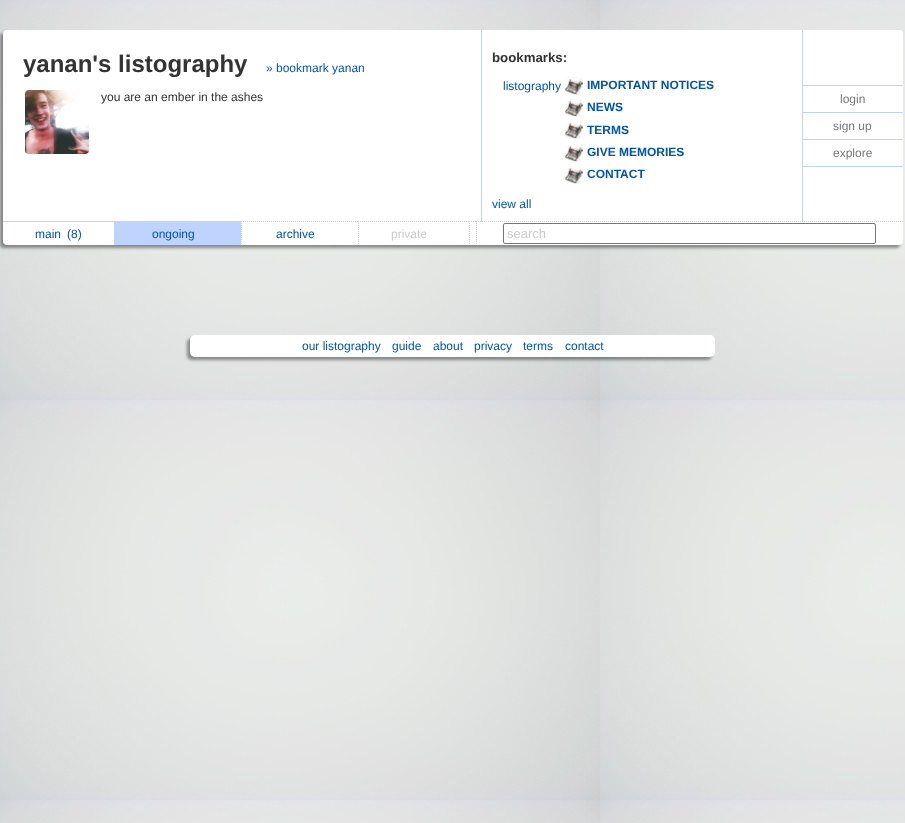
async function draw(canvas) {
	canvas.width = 905;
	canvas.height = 823;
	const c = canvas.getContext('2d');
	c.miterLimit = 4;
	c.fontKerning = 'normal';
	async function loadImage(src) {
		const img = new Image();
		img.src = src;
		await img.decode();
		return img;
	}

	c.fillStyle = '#fff';
	c.fillRect(0, 0, 905, 823);
	c.drawImage(await loadImage('img1.png'), 0, 0, 905, 823);
	c.fillStyle = '#00000066';
	c.filter = 'blur(1.5px)';
	c.beginPath();
	c.roundRect(0, 33, 900, 215, 4);
	c.fill();
	c.filter = 'none';
	c.fillStyle = '#fff';
	c.beginPath();
	c.roundRect(3, 30, 900, 215, 4);
	c.fill();
	c.fillStyle = '#bed4ff';
	c.fillRect(481, 30, 1, 192);
	c.font = 'bold 24px Liberation Sans';
	c.fillStyle = '#333';
	c.fillText('yanan\'s listography', 23, 72);
	c.font = '12px Liberation Sans';
	c.fillStyle = '#05a';
	c.fillText('» bookmark yanan', 266, 72);
	c.drawImage(await loadImage('img2.png'), 25, 90, 64, 64);
	c.fillStyle = '#333';
	c.fillText('you are an ember in the ashes', 101, 101);
	c.font = 'bold 13.25px Liberation Sans';
	c.fillText('bookmarks:', 492, 62);
	c.font = '12px Liberation Sans';
	c.fillStyle = '#05a';
	c.fillText('listography', 503, 90);
	c.drawImage(await loadImage('img3.png'), 565, 77, 18, 18);
	c.font = 'bold 12px Liberation Sans';
	c.fillText('IMPORTANT NOTICES', 587, 89);
	c.drawImage(await loadImage('img3.png'), 565, 99, 18, 18);
	c.fillText('NEWS', 587, 111);
	c.drawImage(await loadImage('img3.png'), 565, 121, 18, 18);
	c.fillText('TERMS', 587, 134);
	c.drawImage(await loadImage('img3.png'), 565, 144, 18, 18);
	c.fillText('GIVE MEMORIES', 587, 156);
	c.drawImage(await loadImage('img3.png'), 565, 166, 18, 18);
	c.fillText('CONTACT', 587, 178);
	c.font = '12px Liberation Sans';
	c.fillText('view all', 492, 208);
	for (const [x, y, w, h, color] of [
		[802, 85, 101, 1, '#bed4ff'],
		[802, 112, 101, 1, '#bed4ff'],
		[802, 139, 101, 1, '#bed4ff'],
		[802, 166, 101, 1, '#bed4ff'],
		[802, 30, 1, 192, '#bed4ff'],
	]) {
		c.fillStyle = color;
		c.fillRect(x, y, w, h);
	}
	c.fillStyle = '#777';
	for (const [text, x, y] of [
		['login', 840, 103],
		['sign up', 833, 130],
		['explore', 833, 157],
	]) {
		c.fillText(text, x, y);
	}
	c.fillStyle = '#bed4ff';
	c.fillRect(3, 221, 111, 1);
	c.fillStyle = '#05a';
	c.fillText('main', 35, 238);
	c.fillText('(8)', 67, 238);
	c.fillStyle = '#bed4ff';
	c.fillRect(114, 221, 127, 24);
	c.fillStyle = '#05a';
	c.fillText('ongoing', 152, 238);
	c.beginPath();
	c.moveTo(241, 221.5);
	c.lineTo(358, 221.5);
	c.strokeStyle = '#bed4ff';
	c.setLineDash([1, 1]);
	c.stroke();
	c.beginPath();
	c.moveTo(241.5, 221);
	c.lineTo(241.5, 245);
	c.stroke();
	c.fillText('archive', 276, 238);
	c.beginPath();
	c.moveTo(358, 221.5);
	c.lineTo(469, 221.5);
	c.stroke();
	c.beginPath();
	c.moveTo(358.5, 221);
	c.lineTo(358.5, 245);
	c.stroke();
	c.fillStyle = '#ccc';
	c.fillText('private', 391, 238);
	c.beginPath();
	c.moveTo(469, 221.5);
	c.lineTo(470, 221.5);
	c.moveTo(471, 221.5);
	c.lineTo(472, 221.5);
	c.moveTo(473, 221.5);
	c.lineTo(474, 221.5);
	c.moveTo(475, 221.5);
	c.lineTo(476, 221.5);
	c.setLineDash([]);
	c.stroke();
	c.beginPath();
	c.moveTo(469.5, 221);
	c.lineTo(469.5, 245);
	c.setLineDash([1, 1]);
	c.stroke();
	c.beginPath();
	c.moveTo(476, 221.5);
	c.lineTo(903, 221.5);
	c.stroke();
	c.beginPath();
	c.moveTo(476.5, 221);
	c.lineTo(476.5, 245);
	c.stroke();
	c.beginPath();
	c.roundRect(503.5, 223.5, 372, 20, 1.5);
	c.strokeStyle = '#767676';
	c.setLineDash([]);
	c.stroke();
	c.font = '13px Liberation Sans';
	c.fillText('search', 507, 238);
	c.fillStyle = '#00000066';
	c.filter = 'blur(1.5px)';
	c.beginPath();
	c.roundRect(187, 338, 525, 22, 5);
	c.fill();
	c.filter = 'none';
	c.fillStyle = '#fff';
	c.beginPath();
	c.roundRect(190, 335, 525, 22, 5);
	c.fill();
	c.font = '12px Liberation Sans';
	c.fillStyle = '#05a';
	for (const [text, x, y] of [
		['our listography', 302, 350],
		['guide', 392, 350],
		['about', 433, 350],
		['privacy', 474, 350],
		['terms', 523, 350],
		['contact', 565, 350],
	]) {
		c.fillText(text, x, y);
	}
}

draw(document.querySelector('canvas'));
